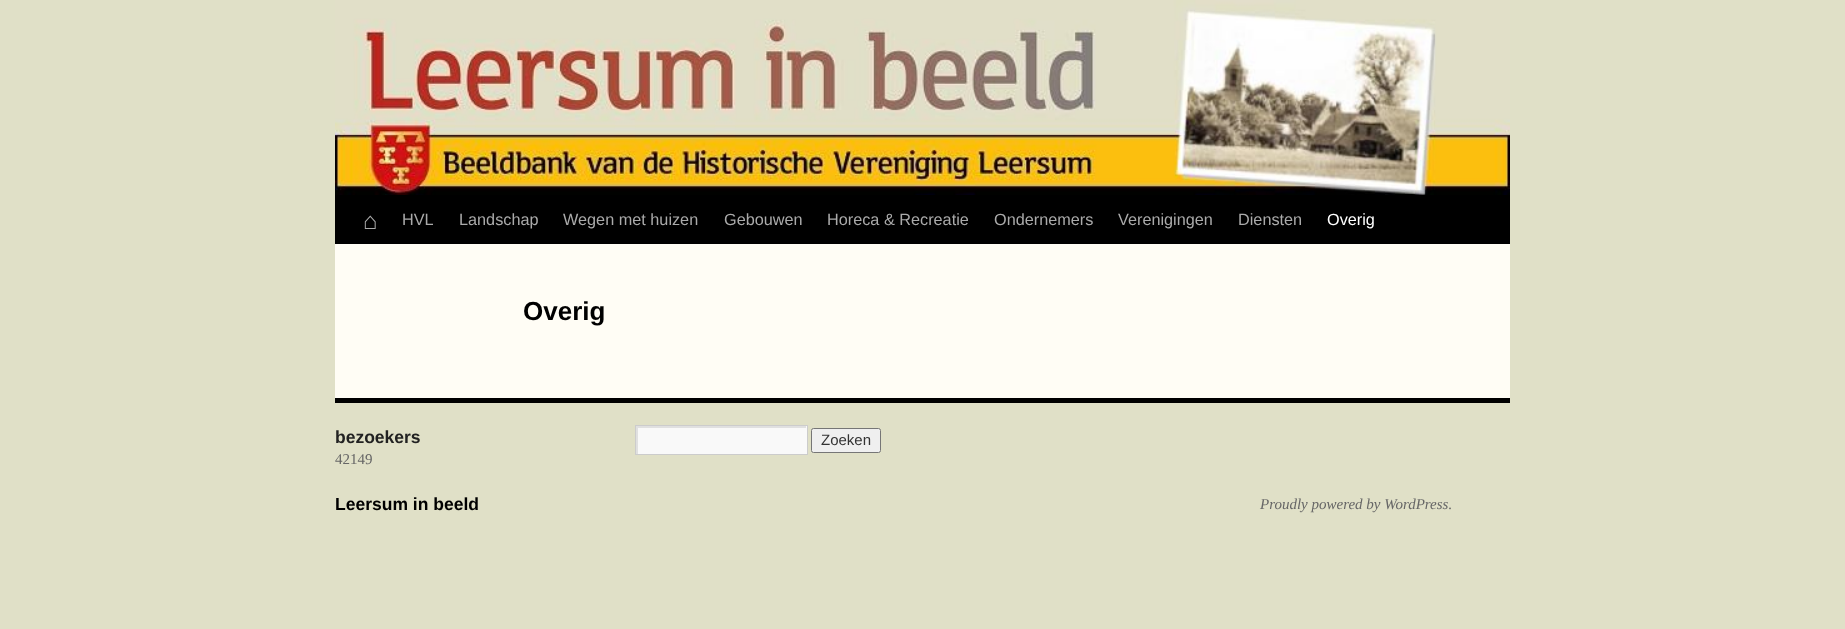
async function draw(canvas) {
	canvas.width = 1845;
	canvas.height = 629;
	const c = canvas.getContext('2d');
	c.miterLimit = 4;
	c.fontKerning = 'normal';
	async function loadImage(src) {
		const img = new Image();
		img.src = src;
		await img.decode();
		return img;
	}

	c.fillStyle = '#e0e0c7';
	c.fillRect(0, 0, 1845, 629);
	c.fillStyle = '#fffdf5';
	c.fillRect(335, 244, 1175, 154);
	c.fillStyle = '#000';
	c.fillRect(335, 195, 1175, 49);
	c.drawImage(await loadImage('img1.png'), 335, 0, 1175, 195);
	c.font = '24px Liberation Sans';
	c.fillStyle = '#aaa';
	c.fillText('⌂', 363, 229);
	c.font = '16.25px Liberation Sans';
	for (const [text, x, y] of [
		['HVL', 402, 225],
		['Landschap', 459, 225],
		['Wegen met huizen', 563, 225],
		['Gebouwen', 724, 225],
		['Horeca & Recreatie', 827, 225],
		['Ondernemers', 994, 225],
		['Verenigingen', 1118, 225],
		['Diensten', 1238, 225],
	]) {
		c.fillText(text, x, y);
	}
	c.fillStyle = '#fff';
	c.fillText('Overig', 1327, 225);
	c.font = 'bold 26px Liberation Sans';
	c.fillStyle = '#000';
	c.fillText('Overig', 523, 320);
	c.fillRect(335, 398, 1175, 5);
	c.font = 'bold 17.5px Liberation Sans';
	c.fillStyle = '#222';
	c.fillText('bezoekers', 335, 443);
	c.font = '15px Liberation Serif';
	c.fillStyle = '#666';
	c.fillText('42149', 335, 464);
	c.fillStyle = '#f9f9f9';
	c.fillRect(638, 426, 169, 28);
	c.save();
	c.beginPath();
	c.rect(636, 426, 170, 28);
	c.clip();
	c.fillStyle = '#e0e0e0';
	c.beginPath();
	c.moveTo(512, 302);
	c.lineTo(930, 302);
	c.lineTo(930, 578);
	c.lineTo(512, 578);
	c.closePath();
	c.moveTo(638, 428);
	c.lineTo(808, 428);
	c.lineTo(808, 455);
	c.lineTo(638, 455);
	c.closePath();
	c.fill('evenodd');
	c.restore();
	c.strokeStyle = '#ccc';
	c.strokeRect(635.5, 425.5, 172, 29);
	c.fillStyle = '#efefef';
	c.beginPath();
	c.roundRect(811.5, 428.5, 69, 24, 2);
	c.fill();
	c.strokeStyle = '#767676';
	c.stroke();
	c.font = '15px Liberation Sans';
	c.fillStyle = '#333';
	c.fillText('Zoeken', 821, 445);
	c.font = 'bold 17.5px Liberation Sans';
	c.fillStyle = '#000';
	c.fillText('Leersum in beeld', 335, 510);
	c.font = 'italic 15px Liberation Serif';
	c.fillStyle = '#666';
	c.fillText('Proudly powered by WordPress.', 1260, 509);
}

draw(document.querySelector('canvas'));
